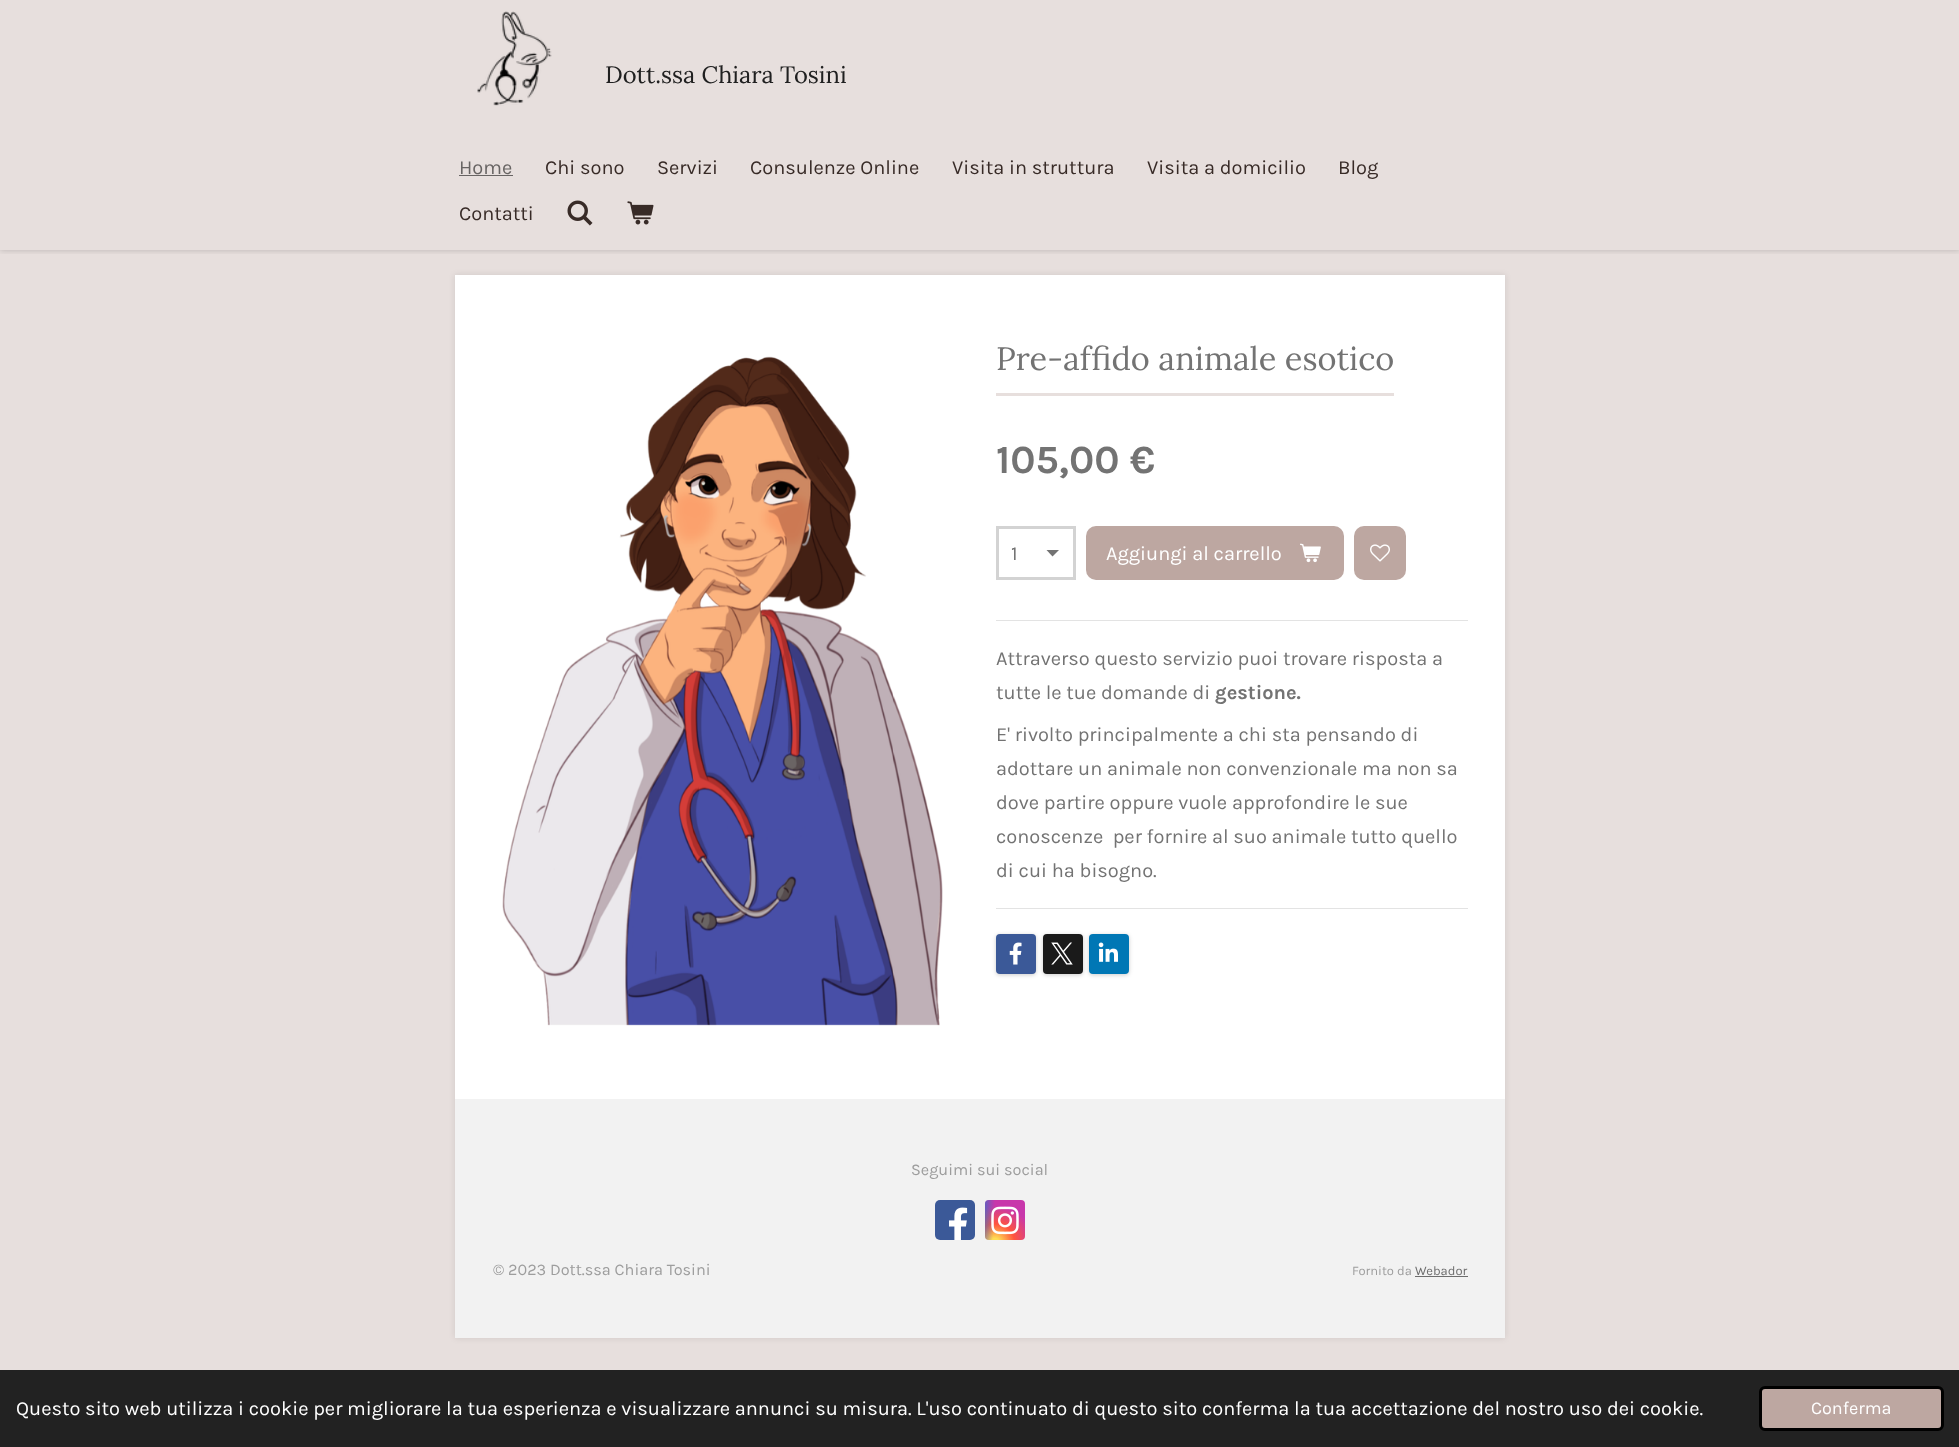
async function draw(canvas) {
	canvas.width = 1959;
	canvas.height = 1447;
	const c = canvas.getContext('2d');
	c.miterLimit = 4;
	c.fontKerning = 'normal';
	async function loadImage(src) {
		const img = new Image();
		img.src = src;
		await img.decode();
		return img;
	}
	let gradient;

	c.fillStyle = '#e7dfdd';
	c.fillRect(0, 0, 1959, 1447);
	c.save();
	c.beginPath();
	c.rect(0, 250, 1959, 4);
	c.clip();
	c.fillStyle = '#00000033';
	c.filter = 'blur(3px)';
	c.beginPath();
	c.rect(0, 0, 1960, 250);
	c.fill();
	c.filter = 'none';
	c.restore();
	c.drawImage(await loadImage('img1.png'), 477, 11, 75, 95);
	c.font = '23.75px Lora';
	c.fillStyle = '#202020';
	c.fillText('Dott.ssa Chiara Tosini', 605, 83);
	c.font = '20px Karla';
	c.fillStyle = '#686463';
	c.fillText('Home', 459, 174);
	c.fillRect(459, 175, 54, 1);
	c.fillStyle = '#382b27';
	for (const [text, x, y] of [
		['Chi sono', 545, 174],
		['Servizi', 657, 174],
		['Consulenze Online', 750, 174],
		['Visita in struttura', 952, 174],
		['Visita a domicilio', 1147, 174],
		['Blog', 1338, 174],
		['Contatti', 459, 220],
	]) {
		c.fillText(text, x, y);
	}
	c.drawImage(await loadImage('img2.png'), 567, 200, 26, 26);
	c.drawImage(await loadImage('img3.png'), 627, 201, 27, 24);
	c.fillStyle = '#0000001a';
	c.filter = 'blur(3px)';
	c.beginPath();
	c.rect(455, 275, 1050, 1063);
	c.fill();
	c.filter = 'none';
	c.fillStyle = '#fff';
	c.fillRect(455, 275, 1050, 824);
	c.drawImage(await loadImage('img4.png'), 502, 356, 441, 670);
	c.fillStyle = '#e7dfdd';
	c.fillRect(996, 393, 398, 3);
	c.font = '32.5px Lora';
	c.fillStyle = '#737373';
	c.fillText('Pre-affido animale esotico', 996, 370);
	c.font = 'bold 40px Karla';
	c.fillText('105,00 €', 996, 473);
	c.beginPath();
	c.moveTo(1052.5, 556.5);
	c.lineTo(1046.5, 550);
	c.lineTo(1059, 550);
	c.closePath();
	c.fill();
	c.strokeStyle = '#d3d3d3';
	c.lineWidth = 3;
	c.strokeRect(997.5, 527.5, 77, 51);
	c.font = '20px Karla';
	c.fillText('1', 1011, 560);
	c.fillStyle = '#bda7a1';
	c.beginPath();
	c.roundRect(1086, 526, 258, 54, 10);
	c.fill();
	c.fillStyle = '#fff';
	c.fillText('Aggiungi al carrello', 1106, 560);
	c.drawImage(await loadImage('img5.png'), 1300, 543, 21, 20);
	c.fillStyle = '#bda7a1';
	c.beginPath();
	c.roundRect(1354, 526, 52, 54, 10);
	c.fill();
	c.drawImage(await loadImage('img6.png'), 1370, 544, 20, 18);
	c.fillStyle = '#e3e3e3';
	c.fillRect(996, 620, 472, 1);
	c.fillStyle = '#737373';
	c.fillText('Attraverso questo servizio puoi trovare risposta a', 996, 665);
	c.fillText('tutte le tue domande di', 996, 699);
	c.font = 'bold 20px Karla';
	c.fillText('gestione.', 1215, 699);
	c.font = '20px Karla';
	for (const [text, x, y] of [
		['E\' rivolto principalmente a chi sta pensando di', 996, 741],
		['adottare un animale non convenzionale ma non sa', 996, 775],
		['dove partire oppure vuole approfondire le sue', 996, 809],
		['conoscenze  per fornire al suo animale tutto quello', 996, 843],
		['di cui ha bisogno.', 996, 877],
	]) {
		c.fillText(text, x, y);
	}
	c.fillStyle = '#e3e3e3';
	c.fillRect(996, 908, 472, 1);
	c.fillStyle = '#00000033';
	c.filter = 'blur(2px)';
	c.beginPath();
	c.roundRect(996, 935, 40, 40, 4);
	c.fill();
	c.filter = 'none';
	c.fillStyle = '#3b5998';
	c.beginPath();
	c.roundRect(996, 934, 40, 40, 4);
	c.fill();
	c.drawImage(await loadImage('img7.png'), 1009, 942, 13, 23);
	c.fillStyle = '#00000033';
	c.filter = 'blur(2px)';
	c.beginPath();
	c.roundRect(1043, 935, 40, 40, 4);
	c.fill();
	c.filter = 'none';
	c.fillStyle = '#1a1a1a';
	c.beginPath();
	c.roundRect(1043, 934, 40, 40, 4);
	c.fill();
	c.drawImage(await loadImage('img8.png'), 1051, 942, 22, 23);
	c.fillStyle = '#00000033';
	c.filter = 'blur(2px)';
	c.beginPath();
	c.roundRect(1089, 935, 40, 40, 4);
	c.fill();
	c.filter = 'none';
	c.fillStyle = '#0077b5';
	c.beginPath();
	c.roundRect(1089, 934, 40, 40, 4);
	c.fill();
	c.drawImage(await loadImage('img9.png'), 1098, 942, 20, 20);
	c.fillStyle = '#f2f2f2';
	c.fillRect(455, 1099, 1050, 239);
	c.font = '16.25px Karla';
	c.fillStyle = '#9d9d9d';
	c.fillText('Seguimi sui social', 911, 1175);
	c.fillStyle = '#3b5998';
	c.beginPath();
	c.roundRect(935, 1200, 40, 40, 5);
	c.fill();
	c.drawImage(await loadImage('img10.png'), 949, 1207, 19, 33);
	gradient = c.createRadialGradient(995, 1345.5, 0, 995, 1345.5, 39);
	gradient.addColorStop(0, '#fd5');
	gradient.addColorStop(0.1, '#fd5');
	gradient.addColorStop(0.5, '#ff543e');
	gradient.addColorStop(1, '#c837ab');
	c.fillStyle = gradient;
	c.beginPath();
	c.roundRect(985, 1200, 40, 40, 4);
	c.save();
	c.clip();
	c.scale(1, 36 / 39);
	c.fillRect(0, 0, 1959, 1568);
	c.restore();
	gradient = c.createRadialGradient(978, 284.04, 0, 978, 284.04, 17);
	gradient.addColorStop(0, '#3771c8');
	gradient.addColorStop(0.13, '#3771c8');
	gradient.addColorStop(1, '#3771c800');
	c.fillStyle = gradient;
	c.beginPath();
	c.roundRect(985, 1200, 40, 40, 4);
	c.save();
	c.clip();
	c.scale(1, 72 / 17);
	c.fillRect(0, 0, 1959, 342);
	c.restore();
	c.drawImage(await loadImage('img11.png'), 991, 1206, 28, 29);
	c.fillStyle = '#9d9d9d';
	c.fillText('© 2023 Dott.ssa Chiara Tosini', 493, 1275);
	c.font = '13px Karla';
	c.fillText('Fornito da', 1352, 1275);
	c.fillStyle = '#6d6d6d';
	c.fillText('Webador', 1415, 1275);
	c.fillRect(1415, 1276, 53, 1);
	c.fillStyle = '#222';
	c.fillRect(0, 1370, 1959, 77);
	c.font = '20px Karla';
	c.fillStyle = '#fff';
	c.fillText('Questo sito web utilizza i cookie per migliorare la tua esperienza e visualizzare annunci su misura. L\'uso continuato di questo sito conferma la tua accettazione del nostro uso dei cookie.', 16, 1415);
	c.fillStyle = '#bda7a1';
	c.beginPath();
	c.roundRect(1760.5, 1387.5, 182, 42, 4.5);
	c.fill();
	c.strokeStyle = '#000';
	c.stroke();
	c.font = '18px Karla';
	c.fillStyle = '#fff';
	c.fillText('Conferma', 1811, 1414);
}

draw(document.querySelector('canvas'));
